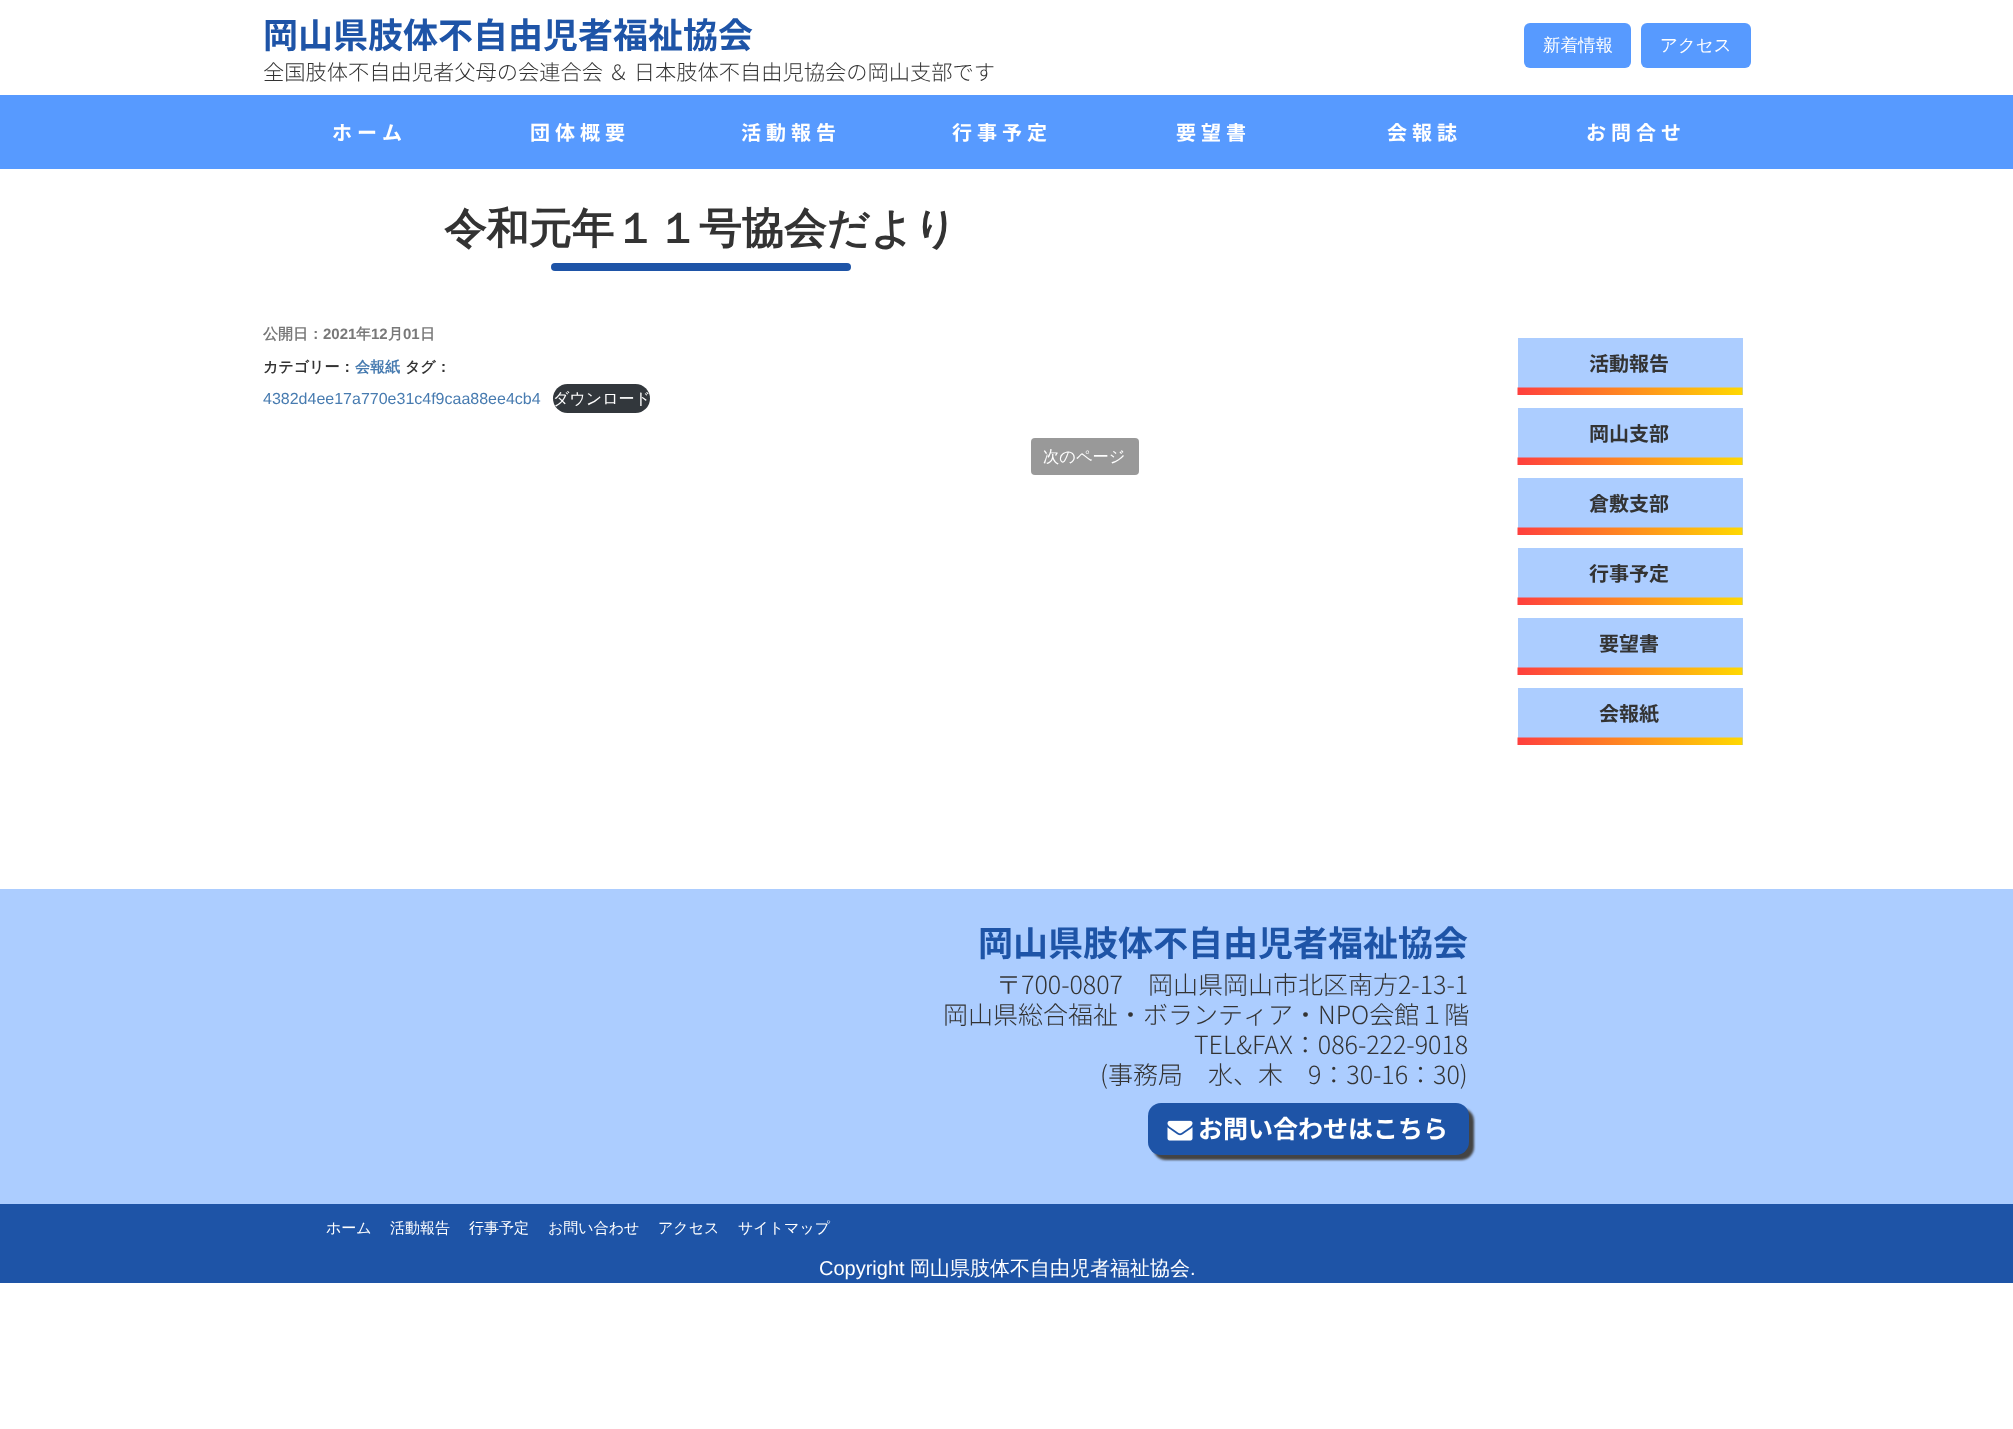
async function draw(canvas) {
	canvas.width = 2013;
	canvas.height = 1429;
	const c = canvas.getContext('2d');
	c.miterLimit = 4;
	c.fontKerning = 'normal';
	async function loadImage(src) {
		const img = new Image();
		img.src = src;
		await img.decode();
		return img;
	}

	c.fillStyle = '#fff';
	c.fillRect(0, 0, 2013, 1429);
	c.font = 'bold 35px Noto Sans JP';
	c.fillStyle = '#1e54a7';
	c.fillText('岡山県肢体不自由児者福祉協会', 263, 48);
	c.font = '300 21.25px Noto Sans JP';
	c.fillStyle = '#333';
	c.fillText('全国肢体不自由児者父母の会連合会 ＆ 日本肢体不自由児協会の岡山支部です', 263, 80);
	c.fillStyle = '#579aff';
	c.beginPath();
	c.roundRect(1524, 23, 107, 45, 6);
	c.fill();
	c.font = '500 17.5px WenQuanYi Zen Hei';
	c.fillStyle = '#fff';
	c.fillText('新着情報', 1543, 51);
	c.fillStyle = '#579aff';
	c.beginPath();
	c.roundRect(1641, 23, 110, 45, 6);
	c.fill();
	c.fillStyle = '#fff';
	c.fillText('アクセス', 1660, 51);
	c.fillStyle = '#579aff';
	c.fillRect(0, 95, 2013, 74);
	c.letterSpacing = '5px';
	c.font = 'bold 20px Noto Sans JP';
	c.fillStyle = '#fff';
	for (const [text, x, y] of [
		['ホーム', 332, 140],
		['団体概要', 530, 140],
		['活動報告', 741, 140],
		['行事予定', 952, 140],
		['要望書', 1176, 140],
		['会報誌', 1387, 140],
		['お問合せ', 1586, 140],
	]) {
		c.fillText(text, x, y);
	}
	c.letterSpacing = '0px';
	c.font = 'bold 42.5px WenQuanYi Zen Hei';
	c.fillStyle = '#333';
	c.fillText('令和元年１１号協会だより', 444, 243);
	c.fillStyle = '#1e54a7';
	c.beginPath();
	c.roundRect(551, 263, 300, 8, 4);
	c.fill();
	c.font = 'bold 15px WenQuanYi Zen Hei';
	c.fillStyle = '#787878';
	c.fillText('公開日：', 263, 339);
	c.font = 'bold 15px Liberation Sans';
	c.fillText('2021', 323, 339);
	c.font = 'bold 15px WenQuanYi Zen Hei';
	c.fillText('年', 356, 339);
	c.font = 'bold 15px Liberation Sans';
	c.fillText('12', 371, 339);
	c.font = 'bold 15px WenQuanYi Zen Hei';
	c.fillText('月', 388, 339);
	c.font = 'bold 15px Liberation Sans';
	c.fillText('01', 403, 339);
	c.font = 'bold 15px WenQuanYi Zen Hei';
	c.fillText('日', 420, 339);
	c.fillStyle = '#333';
	c.fillText('カテゴリー：', 263, 372);
	c.fillStyle = '#477bb0';
	c.fillText('会報紙', 355, 372);
	c.fillStyle = '#333';
	c.fillText('タグ：', 405, 372);
	c.font = '16px Liberation Sans';
	c.fillStyle = '#477bb0';
	c.fillText('4382d4ee17a770e31c4f9caa88ee4cb4', 263, 404);
	c.fillStyle = '#32373c';
	c.beginPath();
	c.roundRect(553, 384, 97, 29, 14.5);
	c.fill();
	c.font = '500 16px WenQuanYi Zen Hei';
	c.fillStyle = '#fff';
	c.fillText('ダウンロード', 553, 404);
	c.fillStyle = '#999';
	c.beginPath();
	c.roundRect(1031, 438, 108, 37, 4);
	c.fill();
	c.font = '500 16.25px WenQuanYi Zen Hei';
	c.fillStyle = '#fff';
	c.fillText('次のページ', 1043, 462);
	c.fillStyle = '#accdff';
	c.fillRect(1518, 338, 225, 57);
	c.drawImage(await loadImage('img1.png'), 1517, 387, 226, 8);
	c.font = 'bold 20px Noto Sans JP';
	c.fillStyle = '#333';
	c.fillText('活動報告', 1589, 371);
	c.fillStyle = '#accdff';
	c.fillRect(1518, 408, 225, 57);
	c.drawImage(await loadImage('img2.png'), 1517, 457, 226, 8);
	c.fillStyle = '#333';
	c.fillText('岡山支部', 1589, 441);
	c.fillStyle = '#accdff';
	c.fillRect(1518, 478, 225, 57);
	c.drawImage(await loadImage('img2.png'), 1517, 527, 226, 8);
	c.fillStyle = '#333';
	c.fillText('倉敷支部', 1589, 511);
	c.fillStyle = '#accdff';
	c.fillRect(1518, 548, 225, 57);
	c.drawImage(await loadImage('img3.png'), 1517, 597, 226, 8);
	c.fillStyle = '#333';
	c.fillText('行事予定', 1589, 581);
	c.fillStyle = '#accdff';
	c.fillRect(1518, 618, 225, 57);
	c.drawImage(await loadImage('img4.png'), 1517, 667, 226, 8);
	c.fillStyle = '#333';
	c.fillText('要望書', 1599, 651);
	c.fillStyle = '#accdff';
	c.fillRect(1518, 688, 225, 57);
	c.drawImage(await loadImage('img1.png'), 1517, 737, 226, 8);
	c.fillStyle = '#333';
	c.fillText('会報紙', 1599, 721);
	c.fillStyle = '#accdff';
	c.fillRect(0, 889, 2013, 315);
	c.font = 'bold 35px Noto Sans JP';
	c.fillStyle = '#1e54a7';
	c.fillText('岡山県肢体不自由児者福祉協会', 978, 956);
	c.font = '300 25px Noto Sans JP';
	c.fillStyle = '#333';
	for (const [text, x, y] of [
		['〒700-0807　岡山県岡山市北区南方2-13-1', 996, 994],
		['岡山県総合福祉・ボランティア・NPO会館１階', 943, 1024],
		['TEL&FAX：086-222-9018', 1194, 1054],
		['(事務局　水、木　9：30-16：30)', 1100, 1084],
	]) {
		c.fillText(text, x, y);
	}
	c.fillStyle = '#444';
	c.filter = 'blur(1px)';
	c.beginPath();
	c.roundRect(1153, 1108, 321, 52, 13);
	c.fill();
	c.filter = 'none';
	c.fillStyle = '#1e54a7';
	c.beginPath();
	c.roundRect(1148, 1103, 321, 52, 13);
	c.fill();
	c.drawImage(await loadImage('img5.png'), 1167, 1120, 26, 21);
	c.font = 'bold 25px Noto Sans JP';
	c.fillStyle = '#fff';
	c.fillText('お問い合わせはこちら', 1198, 1138);
	c.fillStyle = '#1e54a7';
	c.fillRect(0, 1204, 2013, 79);
	c.font = '500 15px WenQuanYi Zen Hei';
	c.fillStyle = '#fff';
	for (const [text, x, y] of [
		['ホーム', 326, 1233],
		['活動報告', 390, 1233],
		['行事予定', 469, 1233],
		['お問い合わせ', 548, 1233],
		['アクセス', 658, 1233],
		['サイトマップ', 738, 1233],
	]) {
		c.fillText(text, x, y);
	}
	c.font = '20px Liberation Sans';
	c.fillText('Copyright', 819, 1275);
	c.font = '500 20px WenQuanYi Zen Hei';
	c.fillText('岡山県肢体不自由児者福祉協会', 910, 1275);
	c.font = '20px Liberation Sans';
	c.fillText('.', 1190, 1275);
}

draw(document.querySelector('canvas'));
